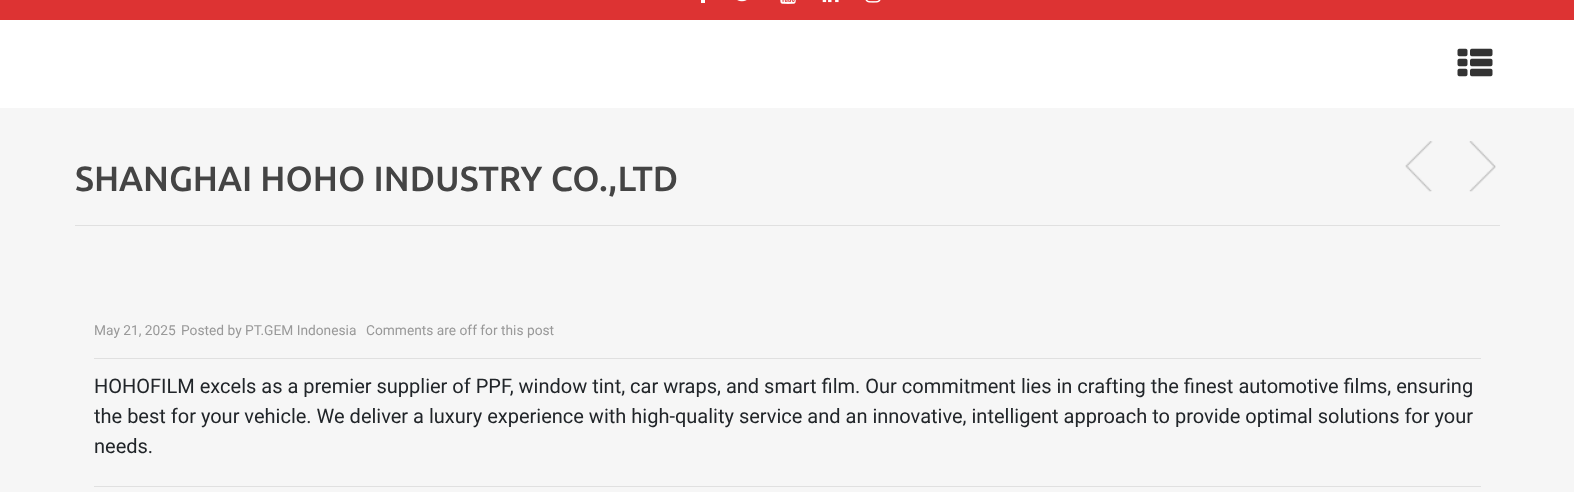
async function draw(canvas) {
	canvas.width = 1574;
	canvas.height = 492;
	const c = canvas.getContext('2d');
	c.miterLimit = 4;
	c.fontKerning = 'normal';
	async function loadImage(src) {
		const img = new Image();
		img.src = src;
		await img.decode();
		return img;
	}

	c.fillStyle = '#fff';
	c.fillRect(0, 0, 1574, 492);
	c.fillStyle = '#d33';
	c.fillRect(0, 0, 1574, 20);
	c.fillStyle = '#fff';
	c.fillRect(701, 0, 4, 3);
	c.drawImage(await loadImage('img1.png'), 737, 0, 10, 2);
	c.drawImage(await loadImage('img2.png'), 780, 0, 16, 4);
	c.drawImage(await loadImage('img3.png'), 822, 0, 17, 3);
	c.drawImage(await loadImage('img4.png'), 865, 0, 16, 3);
	c.drawImage(await loadImage('img5.png'), 1457, 48, 36, 29);
	c.fillStyle = '#f6f6f6';
	c.fillRect(0, 108, 1574, 384);
	c.fillStyle = '#e0e0e0';
	c.fillRect(75, 225, 1425, 1);
	c.font = '500 35px Ubuntu';
	c.fillStyle = '#444';
	c.fillText('SHANGHAI HOHO INDUSTRY CO.,LTD', 75, 191);
	c.drawImage(await loadImage('img6.png'), 1405, 141, 28, 51);
	c.drawImage(await loadImage('img7.png'), 1469, 141, 27, 51);
	c.fillStyle = '#e0e0e0';
	c.fillRect(94, 358, 1387, 1);
	c.font = '13.75px Roboto';
	c.fillStyle = '#999';
	for (const [text, x, y] of [
		['May 21, 2025', 94, 335],
		['Posted by PT.GEM Indonesia', 181, 335],
		['Comments are off for this post', 366, 335],
	]) {
		c.fillText(text, x, y);
	}
	c.font = '20px Roboto';
	c.fillStyle = '#212529';
	for (const [text, x, y] of [
		['HOHOFILM excels as a premier supplier of PPF, window tint, car wraps, and smart film. Our commitment lies in crafting the finest automotive films, ensuring', 94, 393],
		['the best for your vehicle. We deliver a luxury experience with high-quality service and an innovative, intelligent approach to provide optimal solutions for your', 94, 423],
		['needs.', 94, 453],
	]) {
		c.fillText(text, x, y);
	}
	c.fillStyle = '#e0e0e0';
	c.fillRect(94, 486, 1387, 1);
}

draw(document.querySelector('canvas'));
